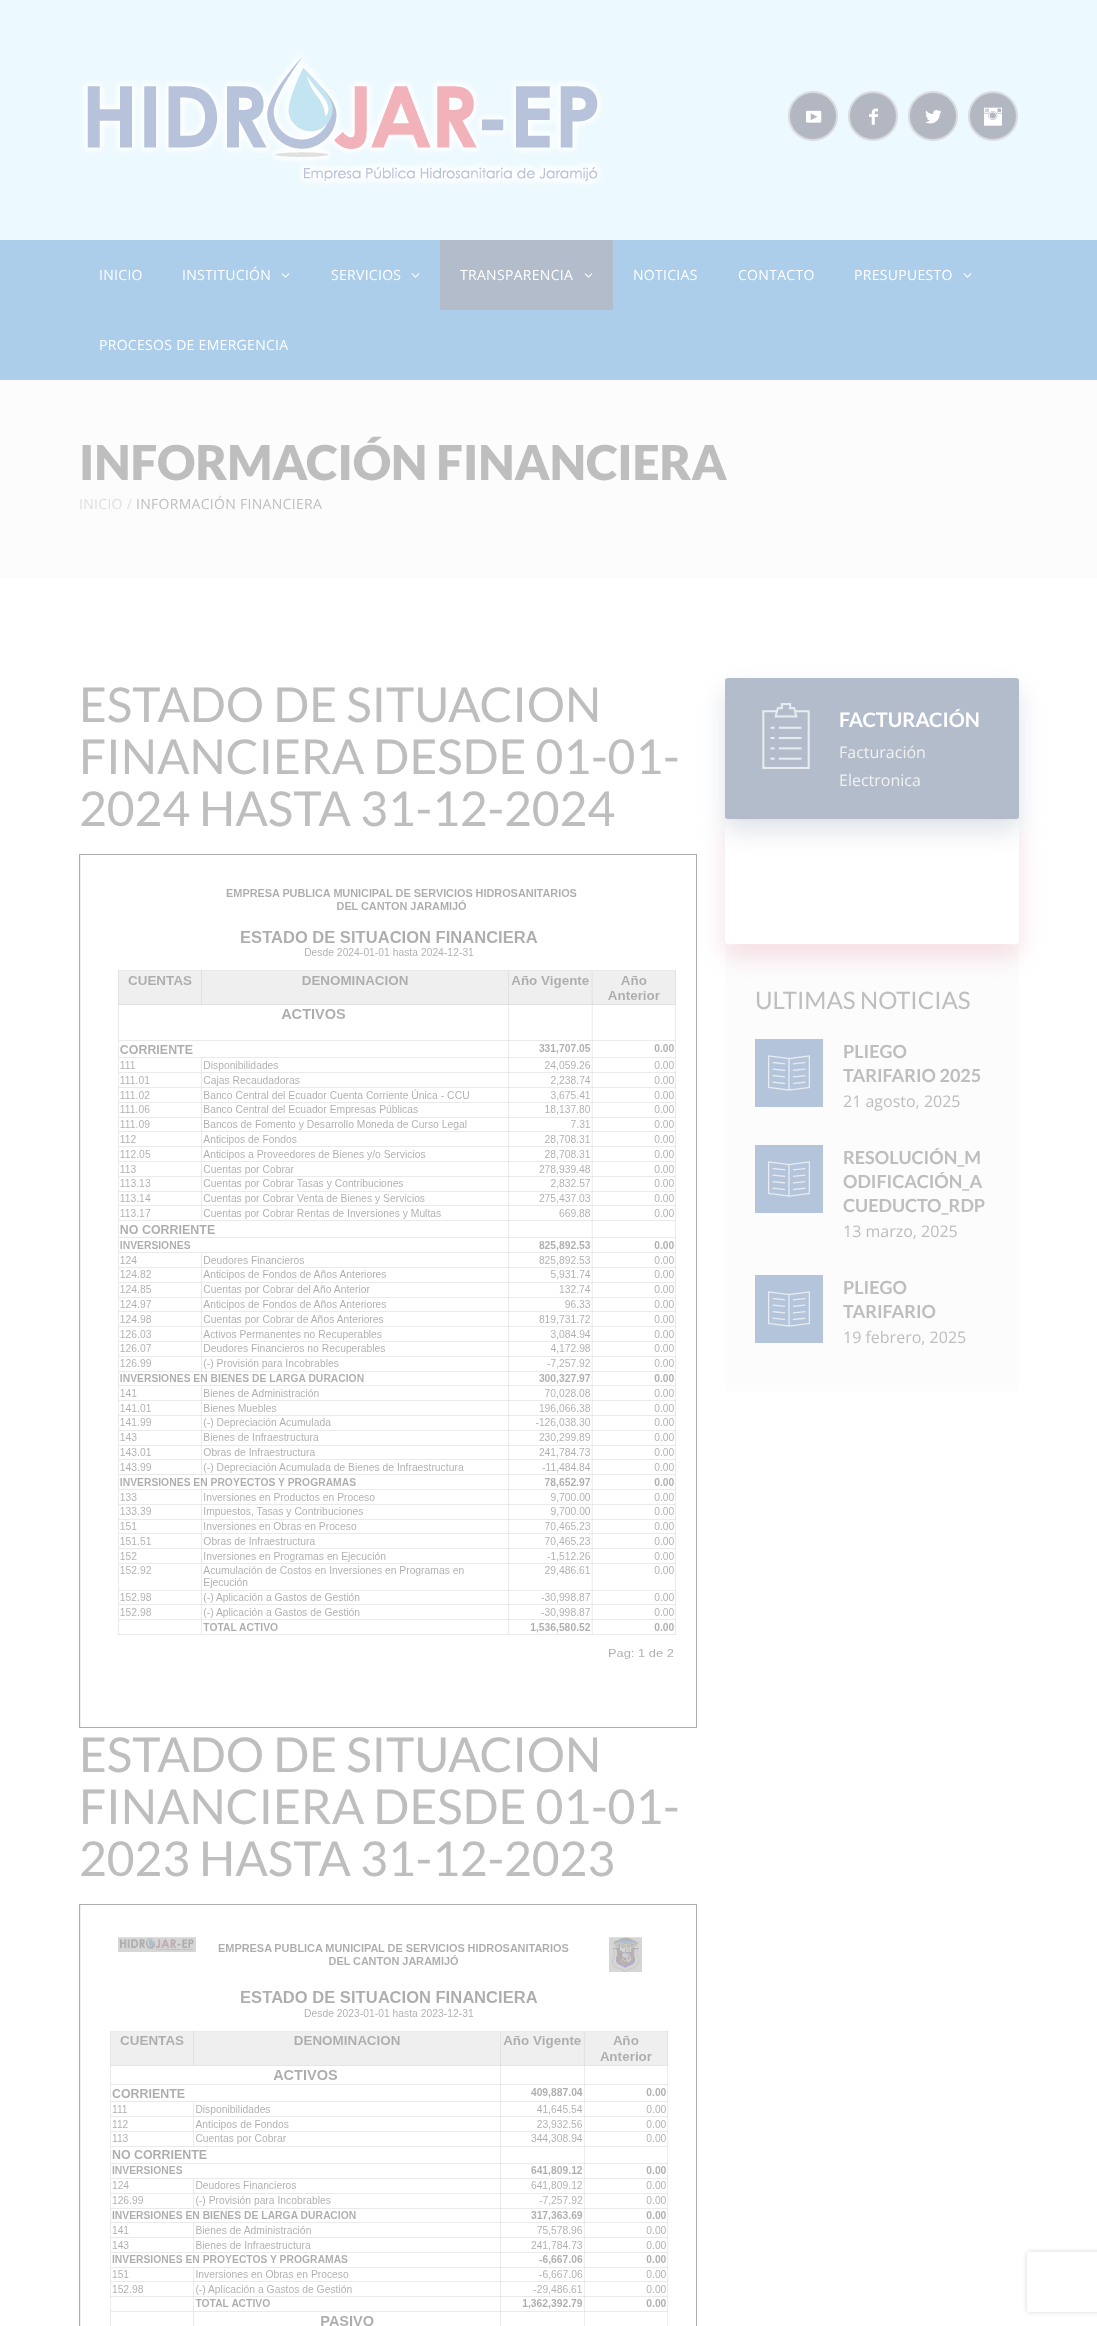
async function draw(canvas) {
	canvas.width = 1097;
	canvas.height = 2326;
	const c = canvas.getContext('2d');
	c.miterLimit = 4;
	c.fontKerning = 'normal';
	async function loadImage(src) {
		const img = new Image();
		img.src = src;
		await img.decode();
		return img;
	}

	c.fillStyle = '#fcfcfc';
	c.fillRect(0, 0, 1097, 2326);
	c.fillStyle = '#ecf9fe';
	c.fillRect(0, 0, 1097, 240);
	c.drawImage(await loadImage('img1.png'), 80, 51, 525, 137);
	c.fillStyle = '#b2b7c2';
	c.beginPath();
	c.arc(813, 116, 24, 0, 2 * Math.PI);
	c.fill();
	c.strokeStyle = '#d9dbe0';
	c.lineWidth = 2;
	c.stroke();
	c.drawImage(await loadImage('img2.png'), 806, 110, 16, 13);
	c.beginPath();
	c.arc(873, 116, 24, 0, 2 * Math.PI);
	c.fill();
	c.stroke();
	c.drawImage(await loadImage('img3.png'), 869, 108, 9, 17);
	c.beginPath();
	c.arc(933, 116, 24, 0, 2 * Math.PI);
	c.fill();
	c.stroke();
	c.drawImage(await loadImage('img4.png'), 925, 110, 17, 14);
	c.beginPath();
	c.arc(993, 116, 24, 0, 2 * Math.PI);
	c.fill();
	c.stroke();
	c.drawImage(await loadImage('img5.png'), 984, 107, 18, 19);
	c.fillStyle = '#adceeb';
	c.fillRect(0, 240, 1097, 140);
	c.letterSpacing = '0.3px';
	c.font = '14px Open Sans';
	c.fillStyle = '#fff';
	c.fillText('INICIO', 99, 280);
	c.fillText('INSTITUCIÓN', 182, 280);
	c.drawImage(await loadImage('img6.png'), 281, 273, 9, 5);
	c.fillText('SERVICIOS', 331, 280);
	c.drawImage(await loadImage('img6.png'), 411, 273, 9, 5);
	c.fillStyle = '#b2bccb';
	c.fillRect(440, 240, 173, 70);
	c.fillStyle = '#fff';
	c.fillText('TRANSPARENCIA', 460, 280);
	c.drawImage(await loadImage('img7.png'), 584, 273, 9, 5);
	for (const [text, x, y] of [
		['NOTICIAS', 633, 280],
		['CONTACTO', 738, 280],
		['PRESUPUESTO', 854, 280],
	]) {
		c.fillText(text, x, y);
	}
	c.drawImage(await loadImage('img6.png'), 963, 273, 9, 5);
	c.fillText('PROCESOS DE EMERGENCIA', 99, 350);
	c.letterSpacing = '-0.1px';
	c.font = '900 48px Lato';
	c.fillStyle = '#bebebe';
	c.fillText('INFORMACIÓN FINANCIERA', 79, 480);
	c.letterSpacing = '0.3px';
	c.font = '14px Open Sans';
	c.fillStyle = '#dedede';
	c.fillText('INICIO /', 79, 509);
	c.fillStyle = '#bebebe';
	c.fillText('INFORMACIÓN FINANCIERA', 136, 509);
	c.fillStyle = '#fff';
	c.fillRect(0, 578, 1097, 1748);
	c.letterSpacing = '-0.1px';
	c.font = '48px Lato';
	c.fillStyle = '#bebebe';
	for (const [text, x, y] of [
		['ESTADO DE SITUACION', 79, 722],
		['FINANCIERA DESDE 01-01-', 79, 774],
		['2024 HASTA 31-12-2024', 79, 826],
	]) {
		c.fillText(text, x, y);
	}
	c.fillStyle = '#f1f1f1';
	c.fillRect(80, 855, 1, 872);
	c.strokeStyle = '#adadad';
	c.lineWidth = 1;
	c.strokeRect(79.5, 854.5, 617, 873);
	c.drawImage(await loadImage('img8.png'), 118, 889, 558, 770);
	c.fillStyle = '#bebebe';
	for (const [text, x, y] of [
		['ESTADO DE SITUACION', 79, 1772],
		['FINANCIERA DESDE 01-01-', 79, 1824],
		['2023 HASTA 31-12-2023', 79, 1876],
	]) {
		c.fillText(text, x, y);
	}
	c.fillStyle = '#f1f1f1';
	c.fillRect(80, 1905, 1, 421);
	c.strokeRect(79.5, 1904.5, 617, 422);
	c.drawImage(await loadImage('img9.png'), 110, 1937, 559, 389);
	c.fillStyle = '#b2bbcb6e';
	c.filter = 'blur(12.5px)';
	c.beginPath();
	c.roundRect(725, 690, 294, 141, 3);
	c.fill();
	c.filter = 'none';
	c.fillStyle = '#b2bccb';
	c.beginPath();
	c.roundRect(725, 678, 294, 141, 3);
	c.fill();
	c.drawImage(await loadImage('img10.png'), 762, 703, 48, 66);
	c.letterSpacing = '0px';
	c.font = 'bold 20px Lato';
	c.fillStyle = '#fff';
	c.fillText('FACTURACIÓN', 839, 727);
	c.font = '16px Open Sans';
	c.fillStyle = '#f1f1f1';
	c.fillText('Facturación', 839, 758);
	c.fillText('Electronica', 839, 786);
	c.fillStyle = '#fcfcfc';
	c.fillRect(725, 946, 294, 445);
	c.save();
	c.beginPath();
	c.moveTo(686, 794);
	c.lineTo(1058, 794);
	c.lineTo(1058, 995);
	c.lineTo(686, 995);
	c.closePath();
	c.moveTo(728, 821);
	c.lineTo(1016, 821);
	c.bezierCurveTo(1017.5, 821, 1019, 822.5, 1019, 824);
	c.lineTo(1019, 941);
	c.bezierCurveTo(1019, 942.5, 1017.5, 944, 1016, 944);
	c.lineTo(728, 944);
	c.bezierCurveTo(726.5, 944, 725, 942.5, 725, 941);
	c.lineTo(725, 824);
	c.bezierCurveTo(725, 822.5, 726.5, 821, 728, 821);
	c.closePath();
	c.clip('evenodd');
	c.fillStyle = '#ebb2c16e';
	c.filter = 'blur(12.5px)';
	c.beginPath();
	c.roundRect(725, 833, 294, 123, 3);
	c.fill();
	c.filter = 'none';
	c.restore();
	c.font = '24px Lato';
	c.fillStyle = '#bebebe';
	c.fillText('ULTIMAS NOTICIAS', 755, 1009);
	c.fillStyle = '#b4c4da';
	c.fillRect(755, 1039, 68, 68);
	c.drawImage(await loadImage('img11.png'), 768, 1055, 42, 36);
	c.font = 'bold 18px Lato';
	c.fillStyle = '#bebebe';
	c.fillText('PLIEGO', 843, 1058);
	c.fillText('TARIFARIO 2025', 843, 1082);
	c.font = '16px Open Sans';
	c.fillText('21 agosto, 2025', 843, 1107);
	c.fillStyle = '#b4c4da';
	c.fillRect(755, 1145, 68, 68);
	c.drawImage(await loadImage('img11.png'), 768, 1161, 42, 36);
	c.font = 'bold 18px Lato';
	c.fillStyle = '#bebebe';
	for (const [text, x, y] of [
		['RESOLUCIÓN_M', 843, 1164],
		['ODIFICACIÓN_A', 843, 1188],
		['CUEDUCTO_RDP', 843, 1212],
	]) {
		c.fillText(text, x, y);
	}
	c.font = '16px Open Sans';
	c.fillText('13 marzo, 2025', 843, 1237);
	c.fillStyle = '#b4c4da';
	c.fillRect(755, 1275, 68, 68);
	c.drawImage(await loadImage('img11.png'), 768, 1291, 42, 36);
	c.font = 'bold 18px Lato';
	c.fillStyle = '#bebebe';
	c.fillText('PLIEGO', 843, 1294);
	c.fillText('TARIFARIO', 843, 1318);
	c.font = '16px Open Sans';
	c.fillText('19 febrero, 2025', 843, 1343);
	c.save();
	c.beginPath();
	c.moveTo(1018, 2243);
	c.lineTo(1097, 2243);
	c.lineTo(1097, 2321);
	c.lineTo(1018, 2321);
	c.closePath();
	c.moveTo(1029, 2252);
	c.lineTo(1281, 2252);
	c.bezierCurveTo(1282, 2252, 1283, 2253, 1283, 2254);
	c.lineTo(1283, 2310);
	c.bezierCurveTo(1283, 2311, 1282, 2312, 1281, 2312);
	c.lineTo(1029, 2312);
	c.bezierCurveTo(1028, 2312, 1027, 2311, 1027, 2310);
	c.lineTo(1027, 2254);
	c.bezierCurveTo(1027, 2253, 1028, 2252, 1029, 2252);
	c.closePath();
	c.clip('evenodd');
	c.fillStyle = '#d6d6d6';
	c.filter = 'blur(2.5px)';
	c.beginPath();
	c.roundRect(1027, 2252, 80, 60, 2);
	c.fill();
	c.filter = 'none';
	c.restore();
}

draw(document.querySelector('canvas'));
